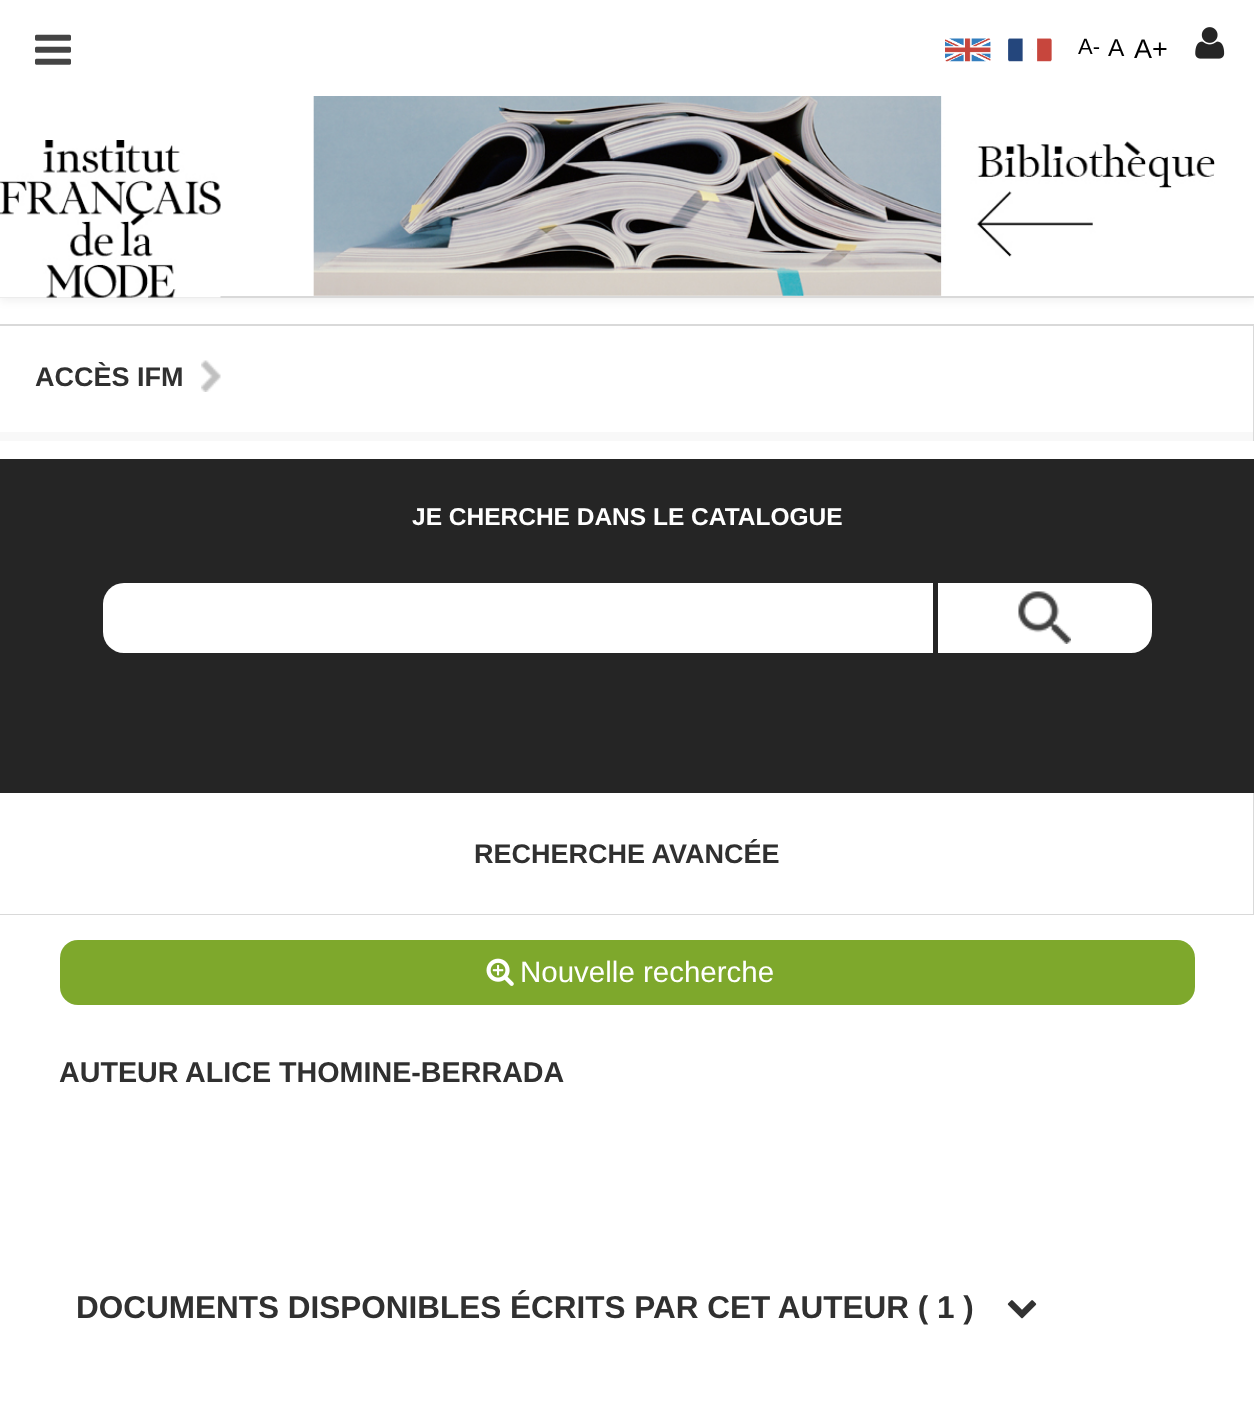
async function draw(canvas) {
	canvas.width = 1254;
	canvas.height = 1405;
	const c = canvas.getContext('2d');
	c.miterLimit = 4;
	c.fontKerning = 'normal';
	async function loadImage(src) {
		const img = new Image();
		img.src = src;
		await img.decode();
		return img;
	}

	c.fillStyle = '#fff';
	c.fillRect(0, 0, 1254, 1405);
	c.fillStyle = '#0000000f';
	c.filter = 'blur(5px)';
	c.beginPath();
	c.rect(0, 4, 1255, 297);
	c.fill();
	c.filter = 'none';
	c.fillStyle = '#fff';
	c.fillRect(0, 0, 1254, 296);
	c.drawImage(await loadImage('img1.png'), 313, 96, 902, 200);
	c.fillStyle = '#d9d9d9';
	c.fillRect(0, 296, 1254, 2);
	c.drawImage(await loadImage('img2.png'), 35, 34, 36, 31);
	c.drawImage(await loadImage('img3.png'), 945, 38, 46, 24);
	c.drawImage(await loadImage('img4.png'), 1008, 38, 44, 24);
	c.font = '22px Liberation Sans';
	c.fillStyle = '#000';
	c.fillText('A-', 1078, 54);
	c.font = '24.5px Liberation Sans';
	c.fillText('A', 1108, 56);
	c.font = '27px Liberation Sans';
	c.fillText('A+', 1134, 58);
	c.drawImage(await loadImage('img5.png'), 1195, 27, 30, 32);
	c.drawImage(await loadImage('img6.png'), 0, 140, 221, 158);
	c.fillStyle = '#d9d9d9';
	c.fillRect(0, 324, 1254, 2);
	c.fillRect(1253, 324, 1, 117);
	c.font = 'bold 27px Liberation Sans';
	c.fillStyle = '#303030';
	c.fillText('ACCÈS IFM', 35, 386);
	c.drawImage(await loadImage('img7.png'), 201, 360, 20, 32);
	c.fillStyle = '#f8f8f8';
	c.fillRect(0, 432, 1253, 9);
	c.fillStyle = '#252525';
	c.fillRect(0, 459, 1254, 334);
	c.font = 'bold 24.5px Liberation Sans';
	c.fillStyle = '#fff';
	c.fillText('JE CHERCHE DANS LE CATALOGUE', 412, 525);
	c.beginPath();
	c.roundRect(103, 583, 830, 70, [21, 0, 0, 21]);
	c.fill();
	c.beginPath();
	c.roundRect(938, 583, 214, 70, [0, 21, 21, 0]);
	c.fill();
	c.drawImage(await loadImage('img8.png'), 1018, 591, 53, 53);
	c.fillStyle = '#d9d9d9';
	c.fillRect(1253, 793, 1, 122);
	c.fillRect(0, 914, 1254, 1);
	c.font = 'bold 27px Liberation Sans';
	c.fillStyle = '#303030';
	c.fillText('RECHERCHE AVANCÉE', 474, 863);
	c.fillStyle = '#7ea82c';
	c.beginPath();
	c.roundRect(60, 940, 1135, 65, 18);
	c.fill();
	c.drawImage(await loadImage('img9.png'), 486, 958, 28, 28);
	c.font = '29.5px Liberation Sans';
	c.fillStyle = '#fff';
	c.fillText('Nouvelle recherche', 520, 982);
	c.font = 'bold 28.7px Liberation Sans';
	c.fillStyle = '#303030';
	c.fillText('AUTEUR', 59, 1082);
	c.fillText('ALICE THOMINE-BERRADA', 185, 1082);
	c.font = 'bold 31.5px Liberation Sans';
	c.fillText('DOCUMENTS DISPONIBLES ÉCRITS PAR CET AUTEUR ( 1 )', 76, 1318);
	c.drawImage(await loadImage('img10.png'), 1007, 1300, 30, 19);
}

draw(document.querySelector('canvas'));
